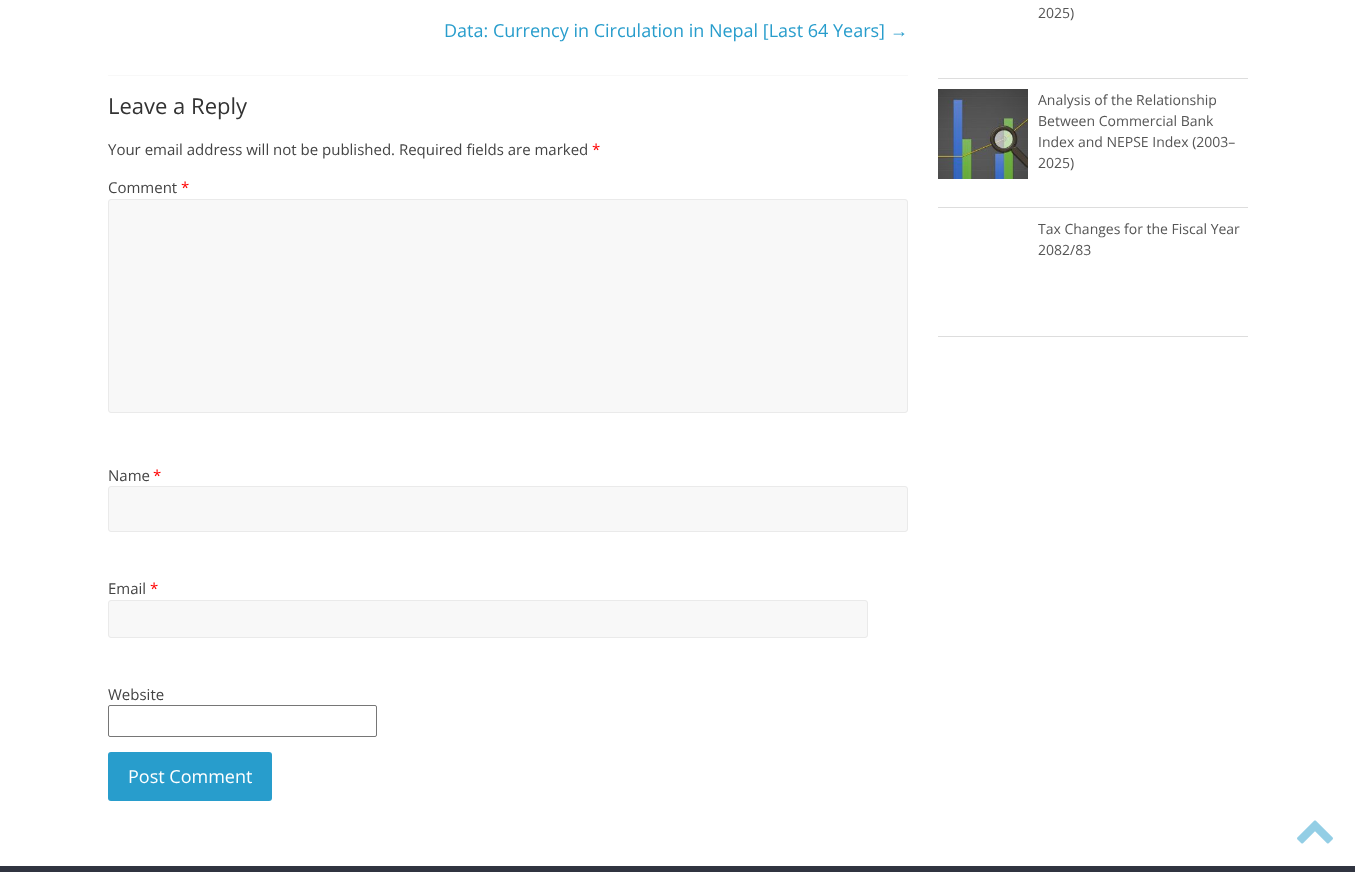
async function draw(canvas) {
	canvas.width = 1355;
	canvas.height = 872;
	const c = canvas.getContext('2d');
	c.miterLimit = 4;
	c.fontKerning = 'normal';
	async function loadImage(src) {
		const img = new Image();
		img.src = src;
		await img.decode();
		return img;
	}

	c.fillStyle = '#fff';
	c.fillRect(0, 0, 1355, 872);
	c.font = '18px Open Sans';
	c.fillStyle = '#289dcc';
	c.fillText('Data: Currency in Circulation in Nepal [Last 64 Years]', 444, 37);
	c.font = '18px Liberation Serif';
	c.fillText('→', 890, 37);
	c.fillStyle = '#f8f8f8';
	c.fillRect(108, 75, 800, 1);
	c.font = '22px Open Sans';
	c.fillStyle = '#333';
	c.fillText('Leave a Reply', 108, 114);
	c.font = '15px Open Sans';
	c.fillStyle = '#444';
	c.fillText('Your email address will not be published. Required fields are marked', 108, 155);
	c.fillStyle = '#f00';
	c.fillText('*', 592, 155);
	c.fillStyle = '#444';
	c.fillText('Comment', 108, 193);
	c.fillStyle = '#f00';
	c.fillText('*', 181, 193);
	c.fillStyle = '#f8f8f8';
	c.beginPath();
	c.roundRect(108.5, 199.5, 799, 213, 2.5);
	c.fill();
	c.strokeStyle = '#eaeaea';
	c.stroke();
	c.fillStyle = '#444';
	c.fillText('Name', 108, 481);
	c.fillStyle = '#f00';
	c.fillText('*', 153, 481);
	c.fillStyle = '#f8f8f8';
	c.beginPath();
	c.roundRect(108.5, 486.5, 799, 45, 2.5);
	c.fill();
	c.stroke();
	c.fillStyle = '#444';
	c.fillText('Email', 108, 594);
	c.fillStyle = '#f00';
	c.fillText('*', 150, 594);
	c.fillStyle = '#f8f8f8';
	c.beginPath();
	c.roundRect(108.5, 600.5, 759, 37, 2.5);
	c.fill();
	c.stroke();
	c.fillStyle = '#444';
	c.fillText('Website', 108, 700);
	c.beginPath();
	c.roundRect(108.5, 705.5, 268, 31, 1.5);
	c.strokeStyle = '#767676';
	c.stroke();
	c.fillStyle = '#289dcc';
	c.beginPath();
	c.roundRect(108, 752, 164, 49, 3);
	c.fill();
	c.font = '18px Open Sans';
	c.fillStyle = '#fff';
	c.fillText('Post Comment', 128, 783);
	c.fillStyle = '#ddd';
	c.fillRect(938, 78, 310, 1);
	c.font = '14px Open Sans';
	c.fillStyle = '#555';
	c.fillText('2025)', 1038, 18);
	c.fillStyle = '#ddd';
	c.fillRect(938, 207, 310, 1);
	c.drawImage(await loadImage('img1.png'), 938, 89, 90, 90);
	c.fillStyle = '#555';
	for (const [text, x, y] of [
		['Analysis of the Relationship', 1038, 105],
		['Between Commercial Bank', 1038, 126],
		['Index and NEPSE Index (2003–', 1038, 147],
		['2025)', 1038, 168],
	]) {
		c.fillText(text, x, y);
	}
	c.fillStyle = '#ddd';
	c.fillRect(938, 336, 310, 1);
	c.fillStyle = '#555';
	c.fillText('Tax Changes for the Fiscal Year', 1038, 234);
	c.fillText('2082/83', 1038, 255);
	c.drawImage(await loadImage('img2.png'), 1297, 820, 36, 24);
	c.fillStyle = '#303440';
	c.fillRect(0, 866, 1355, 6);
}

draw(document.querySelector('canvas'));
